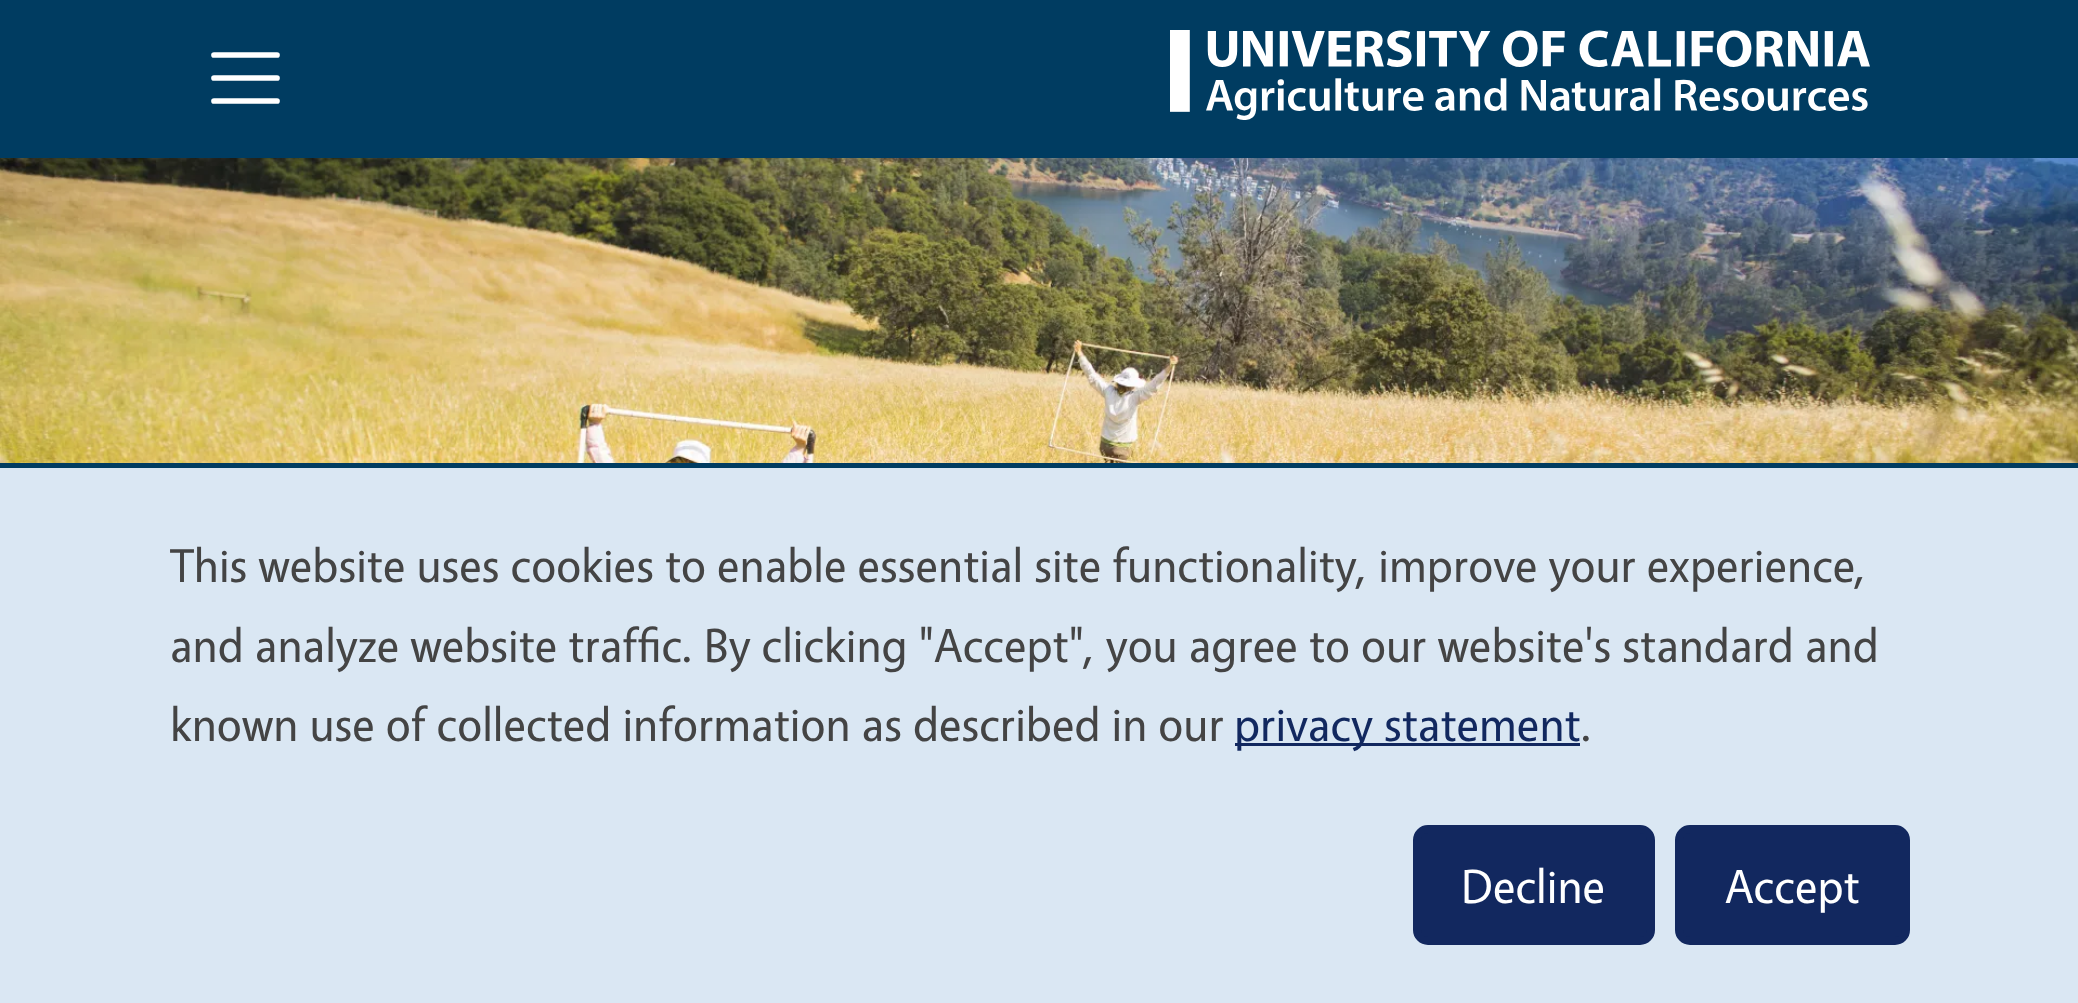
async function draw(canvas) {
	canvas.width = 2078;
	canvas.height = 1003;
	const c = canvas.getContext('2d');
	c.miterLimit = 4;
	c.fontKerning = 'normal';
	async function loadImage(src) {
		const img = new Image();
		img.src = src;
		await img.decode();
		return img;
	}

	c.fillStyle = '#fff';
	c.fillRect(0, 0, 2078, 1003);
	c.fillStyle = '#003c61';
	c.fillRect(0, 0, 2078, 158);
	c.beginPath();
	c.moveTo(214, 55);
	c.lineTo(277, 55);
	c.moveTo(214, 78);
	c.lineTo(277, 78);
	c.moveTo(214, 101);
	c.lineTo(277, 101);
	c.strokeStyle = '#fff';
	c.lineWidth = 5.7;
	c.lineCap = 'round';
	c.stroke();
	c.drawImage(await loadImage('img1.png'), 1170, 30, 700, 90);
	c.drawImage(await loadImage('img2.png'), 0, 158, 2078, 305);
	c.fillStyle = '#dae7f3';
	c.fillRect(0, 468, 2078, 535);
	c.fillStyle = '#003c61';
	c.fillRect(0, 463, 2078, 5);
	c.font = '48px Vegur';
	c.fillStyle = '#444';
	for (const [text, x, y] of [
		['This website uses cookies to enable essential site functionality, improve your experience,', 170, 582],
		['and analyze website traffic. By clicking "Accept", you agree to our website\'s standard and', 170, 662],
		['known use of collected information as described in our', 170, 741],
	]) {
		c.fillText(text, x, y);
	}
	c.fillStyle = '#12285f';
	c.fillRect(1235, 743, 345, 3);
	c.fillText('privacy statement', 1234, 741);
	c.fillStyle = '#444';
	c.fillText('.', 1581, 741);
	c.fillStyle = '#12285f';
	c.beginPath();
	c.roundRect(1417, 829, 234, 112, 11);
	c.fill();
	c.strokeStyle = '#12285f';
	c.lineWidth = 8;
	c.stroke();
	c.fillStyle = '#fff';
	c.fillText('Decline', 1461, 903);
	c.fillStyle = '#12285f';
	c.beginPath();
	c.roundRect(1679, 829, 227, 112, 11);
	c.fill();
	c.stroke();
	c.fillStyle = '#fff';
	c.fillText('Accept', 1725, 903);
}

draw(document.querySelector('canvas'));
